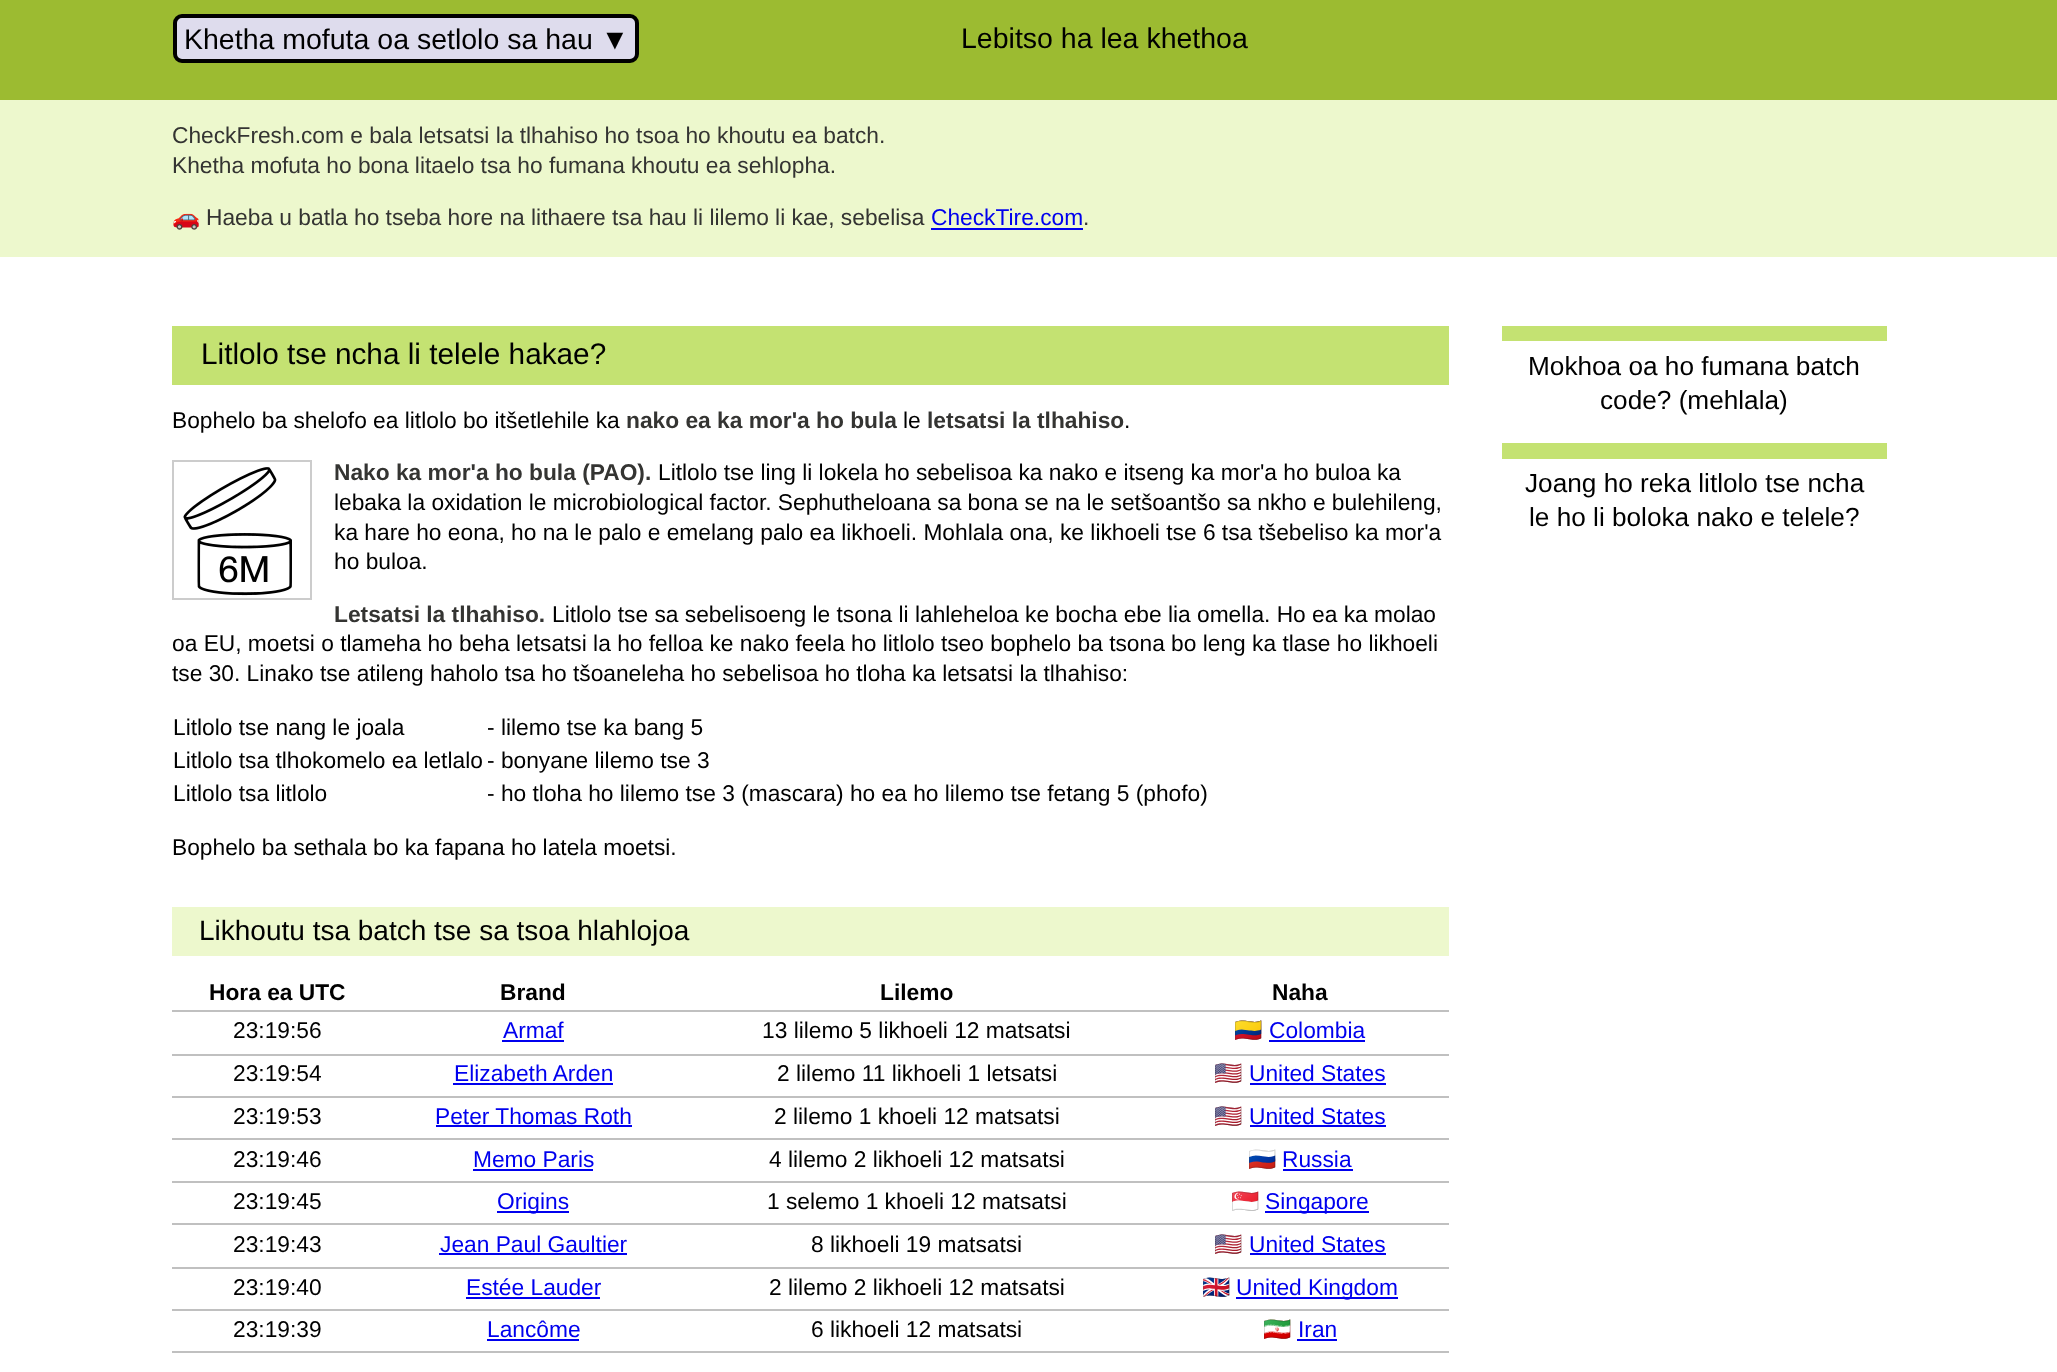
async function draw(canvas) {
	canvas.width = 2057;
	canvas.height = 1372;
	const c = canvas.getContext('2d');
	c.miterLimit = 4;
	c.fontKerning = 'normal';
	async function loadImage(src) {
		const img = new Image();
		img.src = src;
		await img.decode();
		return img;
	}

	c.fillStyle = '#9cbb31';
	c.fillRect(0, 0, 2057, 1372);
	c.fillStyle = '#dedced';
	c.beginPath();
	c.roundRect(175, 16, 462, 45, 7);
	c.fill();
	c.strokeStyle = '#000';
	c.lineWidth = 4;
	c.stroke();
	c.font = '28.5px Liberation Sans';
	c.fillStyle = '#000';
	c.fillText('Khetha mofuta oa setlolo sa hau ▼', 184, 49);
	c.fillText('Lebitso ha lea khethoa', 961, 48);
	c.fillStyle = '#edf8cd';
	c.fillRect(0, 100, 2057, 157);
	c.font = '22.75px Liberation Sans';
	c.fillStyle = '#343432';
	c.fillText('CheckFresh.com e bala letsatsi la tlhahiso ho tsoa ho khoutu ea batch.', 172, 143);
	c.fillText('Khetha mofuta ho bona litaelo tsa ho fumana khoutu ea sehlopha.', 172, 173);
	c.font = '22.75px Noto Color Emoji';
	c.fillText('🚗', 172, 225);
	c.font = '22.75px Liberation Sans';
	c.fillText('Haeba u batla ho tseba hore na lithaere tsa hau li lilemo li kae, sebelisa', 206, 225);
	c.fillStyle = '#00e';
	c.fillText('CheckTire.com', 931, 225);
	c.fillRect(931, 228, 152, 2);
	c.fillStyle = '#343432';
	c.fillText('.', 1083, 225);
	c.fillStyle = '#fff';
	c.fillRect(0, 257, 2057, 1115);
	c.fillStyle = '#c4e272';
	c.fillRect(172, 326, 1277, 59);
	c.font = '29.75px Liberation Sans';
	c.fillStyle = '#000';
	c.fillText('Litlolo tse ncha li telele hakae?', 201, 364);
	c.font = '22.75px Liberation Sans';
	c.fillText('Bophelo ba shelofo ea litlolo bo itšetlehile ka', 172, 428);
	c.font = 'bold 22.75px Liberation Sans';
	c.fillStyle = '#343432';
	c.fillText('nako ea ka mor\'a ho bula', 626, 428);
	c.font = '22.75px Liberation Sans';
	c.fillStyle = '#000';
	c.fillText('le', 903, 428);
	c.font = 'bold 22.75px Liberation Sans';
	c.fillStyle = '#343432';
	c.fillText('letsatsi la tlhahiso', 927, 428);
	c.font = '22.75px Liberation Sans';
	c.fillStyle = '#000';
	c.fillText('.', 1124, 428);
	c.strokeStyle = '#ccc';
	c.lineWidth = 2;
	c.strokeRect(173, 461, 138, 138);
	c.drawImage(await loadImage('img1.png'), 183, 467, 109, 129);
	c.font = 'bold 22.75px Liberation Sans';
	c.fillStyle = '#343432';
	c.fillText('Nako ka mor\'a ho bula (PAO).', 334, 480);
	c.font = '22.75px Liberation Sans';
	c.fillStyle = '#000';
	for (const [text, x, y] of [
		['Litlolo tse ling li lokela ho sebelisoa ka nako e itseng ka mor\'a ho buloa ka', 658, 480],
		['lebaka la oxidation le microbiological factor. Sephutheloana sa bona se na le setšoantšo sa nkho e bulehileng,', 334, 510],
		['ka hare ho eona, ho na le palo e emelang palo ea likhoeli. Mohlala ona, ke likhoeli tse 6 tsa tšebeliso ka mor\'a', 334, 540],
		['ho buloa.', 334, 569],
	]) {
		c.fillText(text, x, y);
	}
	c.font = 'bold 22.75px Liberation Sans';
	c.fillStyle = '#343432';
	c.fillText('Letsatsi la tlhahiso.', 334, 622);
	c.font = '22.75px Liberation Sans';
	c.fillStyle = '#000';
	for (const [text, x, y] of [
		['Litlolo tse sa sebelisoeng le tsona li lahleheloa ke bocha ebe lia omella. Ho ea ka molao', 552, 622],
		['oa EU, moetsi o tlameha ho beha letsatsi la ho felloa ke nako feela ho litlolo tseo bophelo ba tsona bo leng ka tlase ho likhoeli', 172, 651],
		['tse 30. Linako tse atileng haholo tsa ho tšoaneleha ho sebelisoa ho tloha ka letsatsi la tlhahiso:', 172, 681],
		['Litlolo tse nang le joala', 173, 735],
		['- lilemo tse ka bang 5', 487, 735],
		['Litlolo tsa tlhokomelo ea letlalo', 173, 768],
		['- bonyane lilemo tse 3', 487, 768],
		['Litlolo tsa litlolo', 173, 801],
		['- ho tloha ho lilemo tse 3 (mascara) ho ea ho lilemo tse fetang 5 (phofo)', 487, 801],
		['Bophelo ba sethala bo ka fapana ho latela moetsi.', 172, 855],
	]) {
		c.fillText(text, x, y);
	}
	c.fillStyle = '#edf8cd';
	c.fillRect(172, 907, 1277, 49);
	c.font = '28px Liberation Sans';
	c.fillStyle = '#000';
	c.fillText('Likhoutu tsa batch tse sa tsoa hlahlojoa', 199, 940);
	c.font = 'bold 22.75px Liberation Sans';
	for (const [text, x, y] of [
		['Hora ea UTC', 209, 1000],
		['Brand', 500, 1000],
		['Lilemo', 880, 1000],
		['Naha', 1272, 1000],
	]) {
		c.fillText(text, x, y);
	}
	c.fillStyle = '#c0c0c0';
	c.fillRect(172, 1010, 1277, 2);
	c.font = '22.75px Liberation Sans';
	c.fillStyle = '#000';
	c.fillText('23:19:56', 233, 1038);
	c.fillStyle = '#00e';
	c.fillText('Armaf', 503, 1038);
	c.fillRect(502, 1040, 62, 2);
	c.fillStyle = '#000';
	c.fillText('13 lilemo 5 likhoeli 12 matsatsi', 762, 1038);
	c.font = '22.75px Noto Color Emoji';
	c.fillText('🇨🇴', 1234, 1038);
	c.font = '22.75px Liberation Sans';
	c.fillStyle = '#00e';
	c.fillText('Colombia', 1269, 1038);
	c.fillRect(1269, 1040, 96, 2);
	c.fillStyle = '#c0c0c0';
	c.fillRect(172, 1054, 1277, 2);
	c.fillStyle = '#000';
	c.fillText('23:19:54', 233, 1081);
	c.fillStyle = '#00e';
	c.fillText('Elizabeth Arden', 454, 1081);
	c.fillRect(453, 1083, 160, 2);
	c.fillStyle = '#000';
	c.fillText('2 lilemo 11 likhoeli 1 letsatsi', 777, 1081);
	c.font = '22.75px Noto Color Emoji';
	c.fillText('🇺🇸', 1214, 1081);
	c.font = '22.75px Liberation Sans';
	c.fillStyle = '#00e';
	c.fillText('United States', 1249, 1081);
	c.fillRect(1250, 1083, 136, 2);
	c.fillStyle = '#c0c0c0';
	c.fillRect(172, 1096, 1277, 2);
	c.fillStyle = '#000';
	c.fillText('23:19:53', 233, 1124);
	c.fillStyle = '#00e';
	c.fillText('Peter Thomas Roth', 435, 1124);
	c.fillRect(436, 1125, 196, 2);
	c.fillStyle = '#000';
	c.fillText('2 lilemo 1 khoeli 12 matsatsi', 774, 1124);
	c.font = '22.75px Noto Color Emoji';
	c.fillText('🇺🇸', 1214, 1124);
	c.font = '22.75px Liberation Sans';
	c.fillStyle = '#00e';
	c.fillText('United States', 1249, 1124);
	c.fillRect(1250, 1125, 136, 2);
	c.fillStyle = '#c0c0c0';
	c.fillRect(172, 1138, 1277, 2);
	c.fillStyle = '#000';
	c.fillText('23:19:46', 233, 1167);
	c.fillStyle = '#00e';
	c.fillText('Memo Paris', 473, 1167);
	c.fillRect(473, 1169, 120, 2);
	c.fillStyle = '#000';
	c.fillText('4 lilemo 2 likhoeli 12 matsatsi', 769, 1167);
	c.font = '22.75px Noto Color Emoji';
	c.fillText('🇷🇺', 1248, 1167);
	c.font = '22.75px Liberation Sans';
	c.fillStyle = '#00e';
	c.fillText('Russia', 1282, 1167);
	c.fillRect(1283, 1169, 70, 2);
	c.fillStyle = '#c0c0c0';
	c.fillRect(172, 1181, 1277, 2);
	c.fillStyle = '#000';
	c.fillText('23:19:45', 233, 1209);
	c.fillStyle = '#00e';
	c.fillRect(497, 1211, 72, 2);
	c.fillText('Origins', 497, 1209);
	c.fillStyle = '#000';
	c.fillText('1 selemo 1 khoeli 12 matsatsi', 767, 1209);
	c.font = '22.75px Noto Color Emoji';
	c.fillText('🇸🇬', 1231, 1209);
	c.fillStyle = '#00e';
	c.fillRect(1265, 1211, 104, 2);
	c.font = '22.75px Liberation Sans';
	c.fillText('Singapore', 1265, 1209);
	c.fillStyle = '#c0c0c0';
	c.fillRect(172, 1223, 1277, 2);
	c.fillStyle = '#000';
	c.fillText('23:19:43', 233, 1252);
	c.fillStyle = '#00e';
	c.fillText('Jean Paul Gaultier', 440, 1252);
	c.fillRect(439, 1253, 188, 2);
	c.fillStyle = '#000';
	c.fillText('8 likhoeli 19 matsatsi', 811, 1252);
	c.font = '22.75px Noto Color Emoji';
	c.fillText('🇺🇸', 1214, 1252);
	c.font = '22.75px Liberation Sans';
	c.fillStyle = '#00e';
	c.fillText('United States', 1249, 1252);
	c.fillRect(1250, 1253, 136, 2);
	c.fillStyle = '#c0c0c0';
	c.fillRect(172, 1267, 1277, 2);
	c.fillStyle = '#000';
	c.fillText('23:19:40', 233, 1295);
	c.fillStyle = '#00e';
	c.fillText('Estée Lauder', 466, 1295);
	c.fillRect(466, 1297, 134, 2);
	c.fillStyle = '#000';
	c.fillText('2 lilemo 2 likhoeli 12 matsatsi', 769, 1295);
	c.font = '22.75px Noto Color Emoji';
	c.fillText('🇬🇧', 1202, 1295);
	c.fillStyle = '#00e';
	c.fillRect(1236, 1297, 162, 2);
	c.font = '22.75px Liberation Sans';
	c.fillText('United Kingdom', 1236, 1295);
	c.fillStyle = '#c0c0c0';
	c.fillRect(172, 1309, 1277, 2);
	c.fillStyle = '#000';
	c.fillText('23:19:39', 233, 1337);
	c.fillStyle = '#00e';
	c.fillText('Lancôme', 487, 1337);
	c.fillRect(487, 1339, 92, 2);
	c.fillStyle = '#000';
	c.fillText('6 likhoeli 12 matsatsi', 811, 1337);
	c.font = '22.75px Noto Color Emoji';
	c.fillText('🇮🇷', 1263, 1337);
	c.font = '22.75px Liberation Sans';
	c.fillStyle = '#00e';
	c.fillText('Iran', 1298, 1337);
	for (const [x, y, w, h, color] of [
		[1297, 1339, 40, 2, '#00e'],
		[172, 1351, 1277, 2, '#c0c0c0'],
		[1502, 326, 385, 15, '#c4e272'],
	]) {
		c.fillStyle = color;
		c.fillRect(x, y, w, h);
	}
	c.font = '26.2px Liberation Sans';
	c.fillStyle = '#000';
	c.fillText('Mokhoa oa ho fumana batch', 1528, 375);
	c.fillText('code? (mehlala)', 1600, 409);
	c.fillStyle = '#c4e272';
	c.fillRect(1502, 443, 385, 16);
	c.fillStyle = '#000';
	c.fillText('Joang ho reka litlolo tse ncha', 1525, 492);
	c.fillText('le ho li boloka nako e telele?', 1529, 526);
}

draw(document.querySelector('canvas'));
